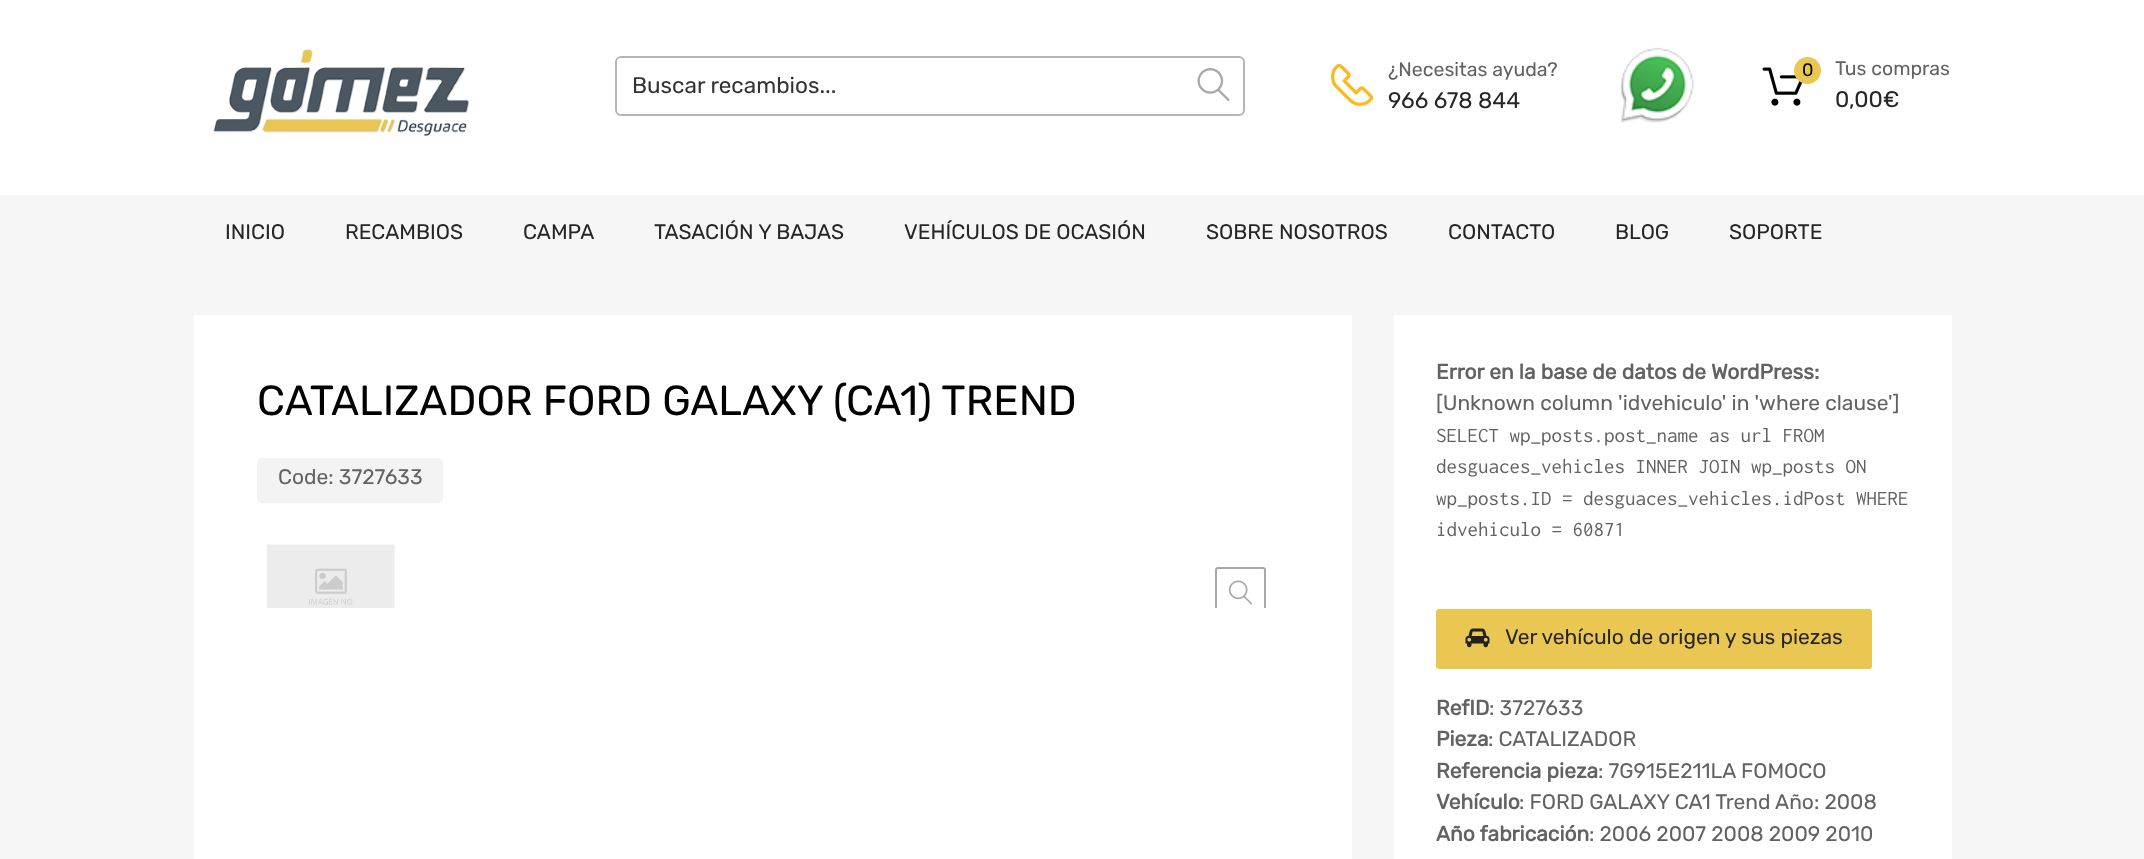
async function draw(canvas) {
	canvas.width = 2144;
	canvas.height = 859;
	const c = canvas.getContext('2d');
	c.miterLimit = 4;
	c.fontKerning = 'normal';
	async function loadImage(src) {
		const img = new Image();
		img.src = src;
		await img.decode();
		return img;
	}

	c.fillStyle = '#f6f6f6';
	c.fillRect(0, 0, 2144, 859);
	c.fillStyle = '#fff';
	c.fillRect(0, 0, 2144, 195);
	c.drawImage(await loadImage('img1.png'), 213, 49, 256, 87);
	c.beginPath();
	c.roundRect(616, 57, 628, 58, 5);
	c.strokeStyle = '#b6b6b6';
	c.lineWidth = 2;
	c.stroke();
	c.font = '300 22.5px Rubik';
	c.fillStyle = '#333';
	c.fillText('Buscar recambios...', 632, 93);
	c.drawImage(await loadImage('img2.png'), 1197, 68, 33, 33);
	c.drawImage(await loadImage('img3.png'), 1331, 63, 42, 43);
	c.font = '300 19.5px Rubik';
	c.fillStyle = '#626262';
	c.fillText('¿Necesitas ayuda?', 1388, 76);
	c.font = '300 22.5px Rubik';
	c.fillStyle = '#262626';
	c.fillText('966 678 844', 1388, 108);
	c.drawImage(await loadImage('img4.png'), 1620, 47, 74, 76);
	c.drawImage(await loadImage('img5.png'), 1762, 67, 41, 39);
	c.fillStyle = '#e9c752';
	c.beginPath();
	c.arc(1807.5, 70.5, 13.5, 0, 2 * Math.PI);
	c.fill();
	c.font = '300 18px Rubik';
	c.fillStyle = '#000';
	c.fillText('0', 1802, 76);
	c.font = '300 19.5px Rubik';
	c.fillStyle = '#626262';
	c.fillText('Tus compras', 1835, 75);
	c.font = '300 22.5px Rubik';
	c.fillStyle = '#262626';
	c.fillText('0,00€', 1835, 107);
	c.font = '300 21px Rubik';
	for (const [text, x, y] of [
		['INICIO', 225, 239],
		['RECAMBIOS', 345, 239],
		['CAMPA', 523, 239],
		['TASACIÓN Y BAJAS', 654, 239],
		['VEHÍCULOS DE OCASIÓN', 904, 239],
		['SOBRE NOSOTROS', 1206, 239],
		['CONTACTO', 1448, 239],
		['BLOG', 1615, 239],
		['SOPORTE', 1729, 239],
	]) {
		c.fillText(text, x, y);
	}
	c.fillStyle = '#fff';
	c.fillRect(194, 315, 1158, 544);
	c.font = '300 42px Rubik';
	c.fillStyle = '#000';
	c.fillText('CATALIZADOR FORD GALAXY (CA1) TREND', 257, 415);
	c.fillStyle = '#f3f3f3';
	c.beginPath();
	c.roundRect(257, 458, 186, 45, 5);
	c.fill();
	c.font = '300 21px Rubik';
	c.fillStyle = '#626262';
	c.fillText('Code: 3727633', 278, 484);
	c.drawImage(await loadImage('img6.png'), 267, 544, 128, 64);
	c.save();
	c.beginPath();
	c.rect(257, 545, 1032, 63);
	c.clip();
	c.beginPath();
	c.roundRect(1216, 568, 49, 49, 2);
	c.strokeStyle = '#a9a9a9';
	c.stroke();
	c.restore();
	c.drawImage(await loadImage('img7.png'), 1228, 580, 25, 25);
	c.fillStyle = '#fff';
	c.fillRect(1394, 315, 558, 544);
	c.font = 'bold 21px Rubik';
	c.fillStyle = '#626262';
	c.fillText('Error en la base de datos de WordPress:', 1436, 379);
	c.font = '300 21px Rubik';
	c.fillText('[Unknown column \'idvehiculo\' in \'where clause\']', 1436, 410);
	c.font = '21px Inconsolata';
	for (const [text, x, y] of [
		['SELECT wp_posts.post_name as url FROM', 1436, 442],
		['desguaces_vehicles INNER JOIN wp_posts ON', 1436, 473],
		['wp_posts.ID = desguaces_vehicles.idPost WHERE', 1436, 505],
		['idvehiculo = 60871', 1436, 536],
	]) {
		c.fillText(text, x, y);
	}
	c.fillStyle = '#e9c752';
	c.beginPath();
	c.roundRect(1436, 609, 436, 60, 3);
	c.fill();
	c.drawImage(await loadImage('img8.png'), 1465, 628, 25, 20);
	c.font = '300 21px Rubik';
	c.fillStyle = '#262626';
	c.fillText('Ver vehículo de origen y sus piezas', 1505, 644);
	c.font = 'bold 21px Rubik';
	c.fillStyle = '#626262';
	c.fillText('RefID', 1436, 715);
	c.font = '300 21px Rubik';
	c.fillText(': 3727633', 1489, 715);
	c.font = 'bold 21px Rubik';
	c.fillText('Pieza', 1436, 746);
	c.font = '300 21px Rubik';
	c.fillText(': CATALIZADOR', 1488, 746);
	c.font = 'bold 21px Rubik';
	c.fillText('Referencia pieza', 1436, 778);
	c.font = '300 21px Rubik';
	c.fillText(': 7G915E211LA FOMOCO', 1598, 778);
	c.font = 'bold 21px Rubik';
	c.fillText('Vehículo', 1436, 809);
	c.font = '300 21px Rubik';
	c.fillText(': FORD GALAXY CA1 Trend Año: 2008', 1519, 809);
	c.font = 'bold 21px Rubik';
	c.fillText('Año fabricación', 1436, 841);
	c.font = '300 21px Rubik';
	c.fillText(': 2006 2007 2008 2009 2010', 1589, 841);
}

draw(document.querySelector('canvas'));
